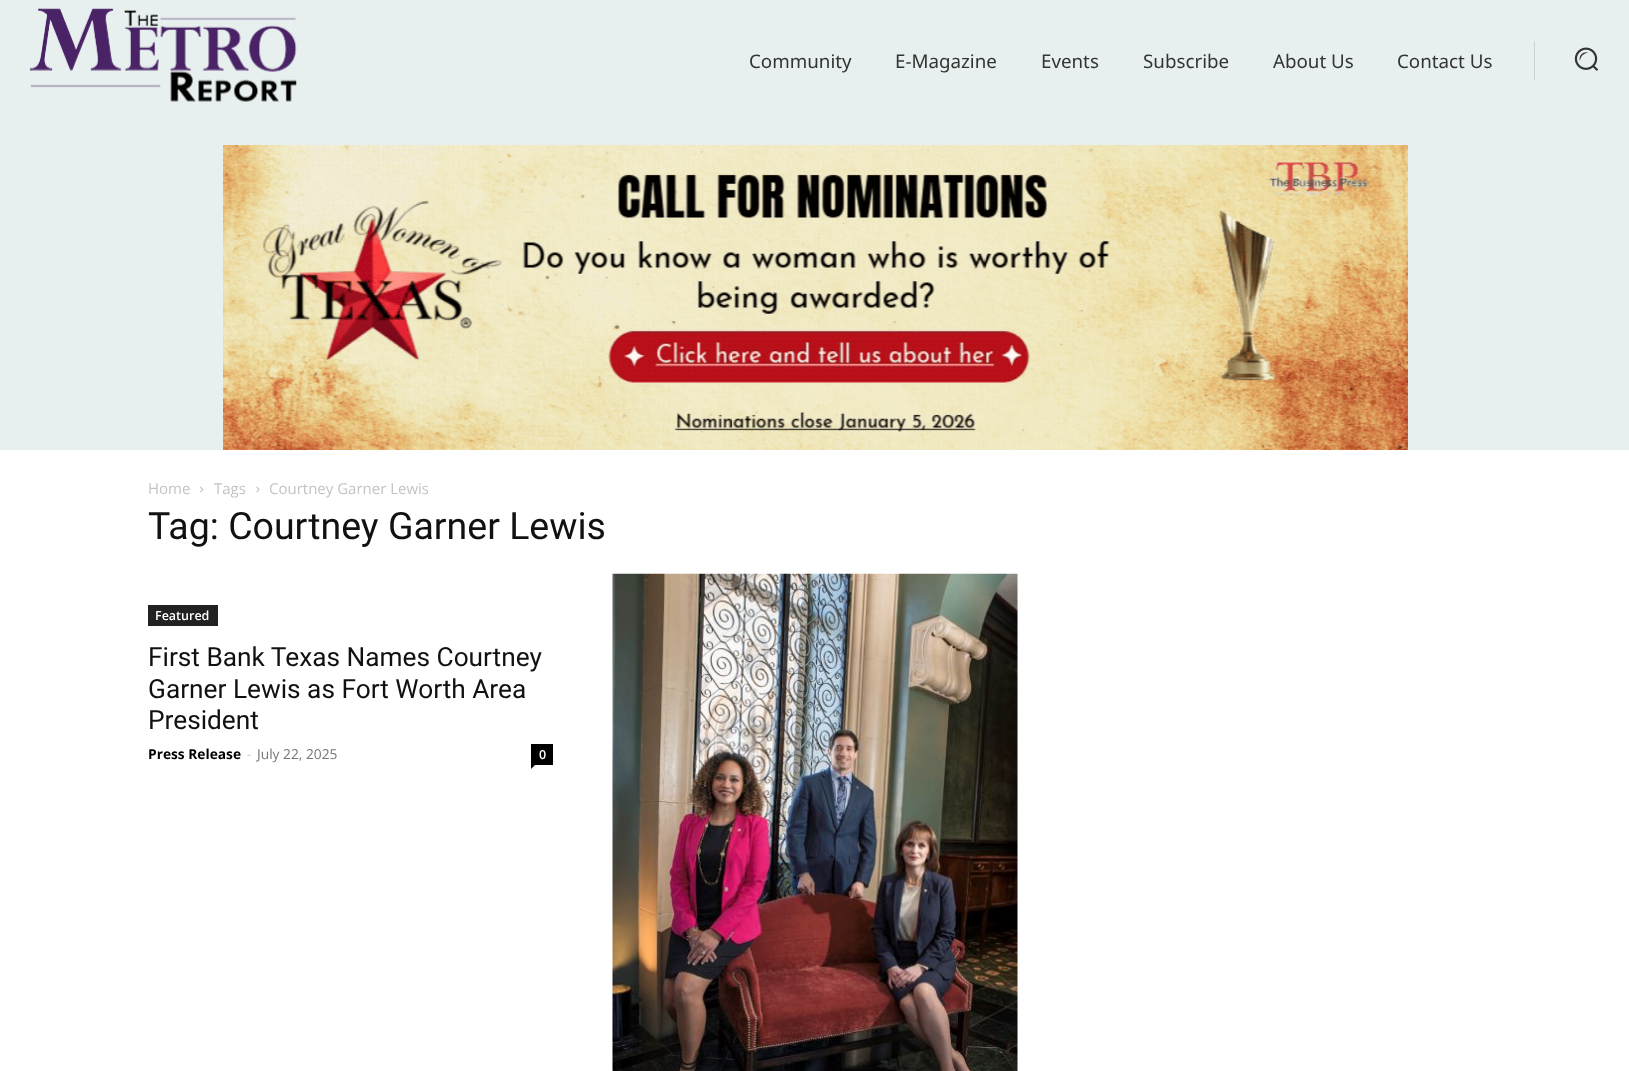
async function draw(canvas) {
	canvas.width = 1629;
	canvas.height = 1071;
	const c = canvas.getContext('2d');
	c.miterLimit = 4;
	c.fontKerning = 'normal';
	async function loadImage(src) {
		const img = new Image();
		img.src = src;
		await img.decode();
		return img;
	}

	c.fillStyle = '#fff';
	c.fillRect(0, 0, 1629, 1071);
	c.fillStyle = '#e8efef';
	c.fillRect(0, 0, 1629, 450);
	c.drawImage(await loadImage('img1.png'), 30, 8, 267, 94);
	c.font = '18.75px Noto Sans';
	c.fillStyle = '#333';
	for (const [text, x, y] of [
		['Community', 749, 68],
		['E-Magazine', 895, 68],
		['Events', 1041, 68],
		['Subscribe', 1143, 68],
		['About Us', 1273, 68],
		['Contact Us', 1397, 68],
	]) {
		c.fillText(text, x, y);
	}
	c.fillStyle = '#ccd2d2';
	c.fillRect(1534, 41, 1, 39);
	c.drawImage(await loadImage('img2.png'), 1574, 47, 25, 24);
	c.drawImage(await loadImage('img3.png'), 223, 145, 1185, 305);
	c.font = '15px Open Sans';
	c.fillStyle = '#c3c3c3';
	c.fillText('Home', 148, 494);
	c.drawImage(await loadImage('img4.png'), 200, 486, 4, 7);
	c.fillText('Tags', 214, 494);
	c.drawImage(await loadImage('img5.png'), 256, 486, 4, 7);
	c.fillText('Courtney Garner Lewis', 269, 494);
	c.font = '37.5px Roboto';
	c.fillStyle = '#111';
	c.fillText('Tag: Courtney Garner Lewis', 148, 539);
	c.fillStyle = '#222';
	c.fillRect(148, 605, 70, 21);
	c.font = '600 12.5px Open Sans';
	c.fillStyle = '#fff';
	c.fillText('Featured', 155, 620);
	c.font = '26.25px Roboto';
	c.fillStyle = '#111';
	for (const [text, x, y] of [
		['First Bank Texas Names Courtney', 148, 666],
		['Garner Lewis as Fort Worth Area', 148, 698],
		['President', 148, 729],
	]) {
		c.fillText(text, x, y);
	}
	c.font = 'bold 13.75px Open Sans';
	c.fillStyle = '#000';
	c.fillText('Press Release', 148, 759);
	c.font = '13.75px Open Sans';
	c.fillStyle = '#ccc';
	c.fillText('-', 247, 759);
	c.fillStyle = '#767676';
	c.fillText('July 22, 2025', 257, 759);
	c.fillStyle = '#000';
	c.fillRect(531, 744, 22, 21);
	c.font = '600 12.5px Open Sans';
	c.fillStyle = '#fff';
	c.fillText('0', 539, 759);
	c.fillStyle = '#000';
	c.beginPath();
	c.moveTo(531, 765);
	c.lineTo(535, 765);
	c.lineTo(531, 769);
	c.closePath();
	c.fill();
	c.drawImage(await loadImage('img6.png'), 612, 573, 406, 498);
}

draw(document.querySelector('canvas'));
